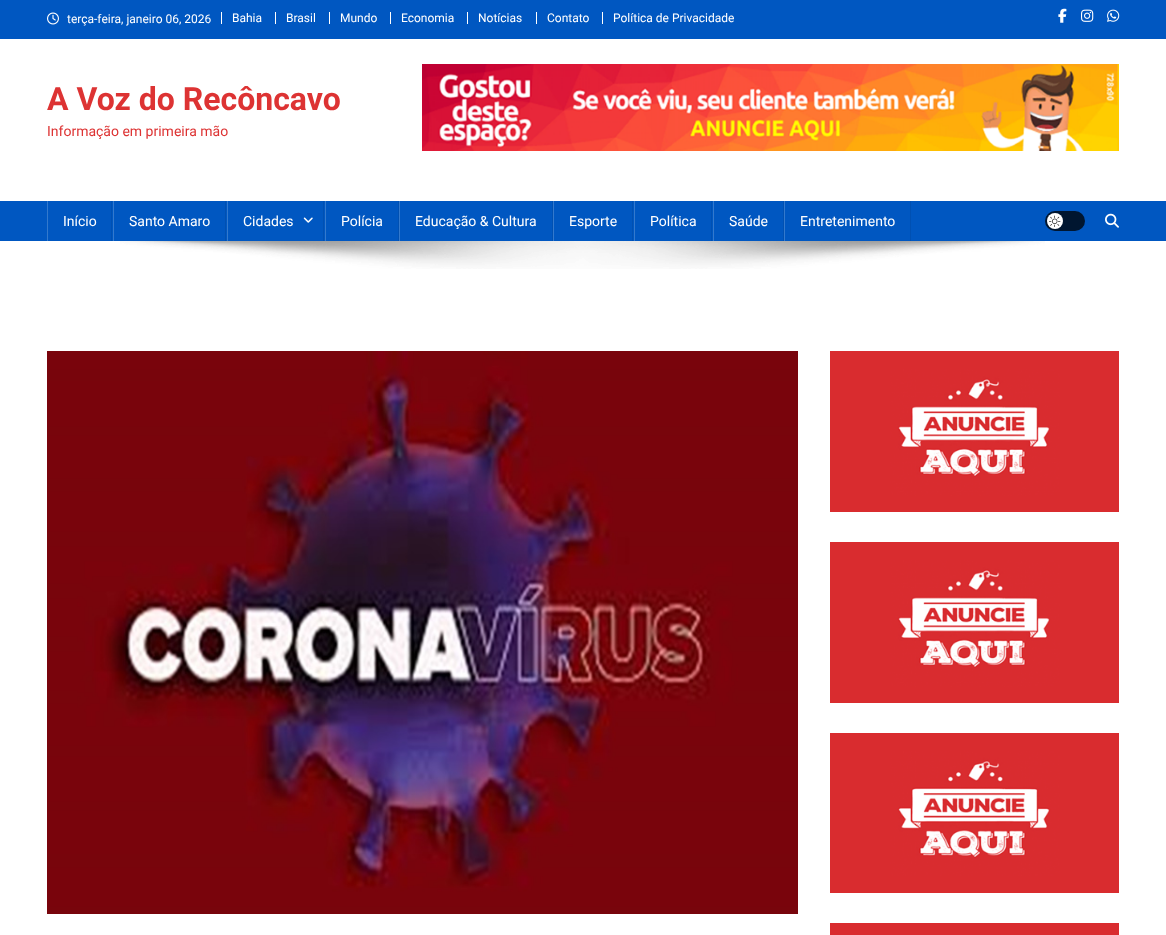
async function draw(canvas) {
	canvas.width = 1166;
	canvas.height = 935;
	const c = canvas.getContext('2d');
	c.miterLimit = 4;
	c.fontKerning = 'normal';
	async function loadImage(src) {
		const img = new Image();
		img.src = src;
		await img.decode();
		return img;
	}

	c.fillStyle = '#fff';
	c.fillRect(0, 0, 1166, 935);
	c.fillStyle = '#0057c1';
	c.fillRect(0, 0, 1166, 39);
	c.drawImage(await loadImage('img1.png'), 47, 12, 12, 13);
	c.font = '12px Roboto';
	c.fillStyle = '#fff';
	c.fillText('terça-feira, janeiro 06, 2026', 67, 23);
	c.fillRect(221, 12, 1, 12);
	c.fillText('Bahia', 232, 22);
	c.fillRect(275, 12, 1, 12);
	c.fillText('Brasil', 286, 22);
	c.fillRect(329, 12, 1, 12);
	c.fillText('Mundo', 340, 22);
	c.fillRect(390, 12, 1, 12);
	c.fillText('Economia', 401, 22);
	c.fillRect(467, 12, 1, 12);
	c.fillText('Notícias', 478, 22);
	c.fillRect(536, 12, 1, 12);
	c.fillText('Contato', 547, 22);
	c.fillRect(602, 12, 1, 12);
	c.fillText('Política de Privacidade', 613, 22);
	c.drawImage(await loadImage('img2.png'), 1058, 8, 9, 15);
	c.drawImage(await loadImage('img3.png'), 1081, 9, 13, 13);
	c.drawImage(await loadImage('img4.png'), 1107, 9, 13, 13);
	c.font = 'bold 32px Roboto';
	c.fillStyle = '#d33';
	c.fillText('A Voz do Recôncavo', 47, 110);
	c.font = '14px Roboto';
	c.fillText('Informação em primeira mão', 47, 136);
	c.drawImage(await loadImage('img5.png'), 422, 64, 697, 87);
	for (const [x, y, w, h, color] of [
		[0, 201, 1166, 40, '#0057c1'],
		[111, 201, 1, 40, '#0050b2'],
		[47, 201, 1, 40, '#3379cd'],
	]) {
		c.fillStyle = color;
		c.fillRect(x, y, w, h);
	}
	c.fillStyle = '#fff';
	c.fillText('Início', 63, 226);
	c.fillStyle = '#0050b2';
	c.fillRect(225, 201, 1, 40);
	c.fillStyle = '#3379cd';
	c.fillRect(113, 201, 1, 40);
	c.fillStyle = '#fff';
	c.fillText('Santo Amaro', 129, 226);
	c.fillStyle = '#0050b2';
	c.fillRect(323, 201, 1, 40);
	c.fillStyle = '#3379cd';
	c.fillRect(227, 201, 1, 40);
	c.fillStyle = '#fff';
	c.fillText('Cidades', 243, 226);
	c.drawImage(await loadImage('img6.png'), 303, 217, 10, 6);
	c.fillStyle = '#0050b2';
	c.fillRect(398, 201, 1, 40);
	c.fillStyle = '#3379cd';
	c.fillRect(325, 201, 1, 40);
	c.fillStyle = '#fff';
	c.fillText('Polícia', 341, 226);
	c.fillStyle = '#0050b2';
	c.fillRect(552, 201, 1, 40);
	c.fillStyle = '#3379cd';
	c.fillRect(399, 201, 1, 40);
	c.fillStyle = '#fff';
	c.fillText('Educação & Cultura', 415, 226);
	c.fillStyle = '#0050b2';
	c.fillRect(632, 201, 1, 40);
	c.fillStyle = '#3379cd';
	c.fillRect(553, 201, 1, 40);
	c.fillStyle = '#fff';
	c.fillText('Esporte', 569, 226);
	c.fillStyle = '#0050b2';
	c.fillRect(711, 201, 1, 40);
	c.fillStyle = '#3379cd';
	c.fillRect(634, 201, 1, 40);
	c.fillStyle = '#fff';
	c.fillText('Política', 650, 226);
	c.fillStyle = '#0050b2';
	c.fillRect(783, 201, 1, 40);
	c.fillStyle = '#3379cd';
	c.fillRect(713, 201, 1, 40);
	c.fillStyle = '#fff';
	c.fillText('Saúde', 729, 226);
	c.fillStyle = '#0050b2';
	c.fillRect(910, 201, 1, 40);
	c.fillStyle = '#3379cd';
	c.fillRect(784, 201, 1, 40);
	c.fillStyle = '#fff';
	c.fillText('Entretenimento', 800, 226);
	c.fillStyle = '#001630';
	c.beginPath();
	c.roundRect(1045, 211, 40, 20, 10);
	c.fill();
	c.fillStyle = '#fff';
	c.beginPath();
	c.arc(1055, 221, 8, 0, 2 * Math.PI);
	c.fill();
	c.drawImage(await loadImage('img7.png'), 1049, 215, 12, 12);
	c.drawImage(await loadImage('img8.png'), 1105, 213, 14, 15);
	c.drawImage(await loadImage('img9.png'), 120, 241, 925, 28);
	c.drawImage(await loadImage('img10.png'), 47, 351, 751, 563);
	c.drawImage(await loadImage('img11.png'), 830, 351, 289, 161);
	c.drawImage(await loadImage('img12.png'), 830, 542, 289, 161);
	c.drawImage(await loadImage('img13.png'), 830, 733, 289, 160);
	c.fillStyle = '#d92c2f';
	c.fillRect(830, 923, 289, 12);
}

draw(document.querySelector('canvas'));
